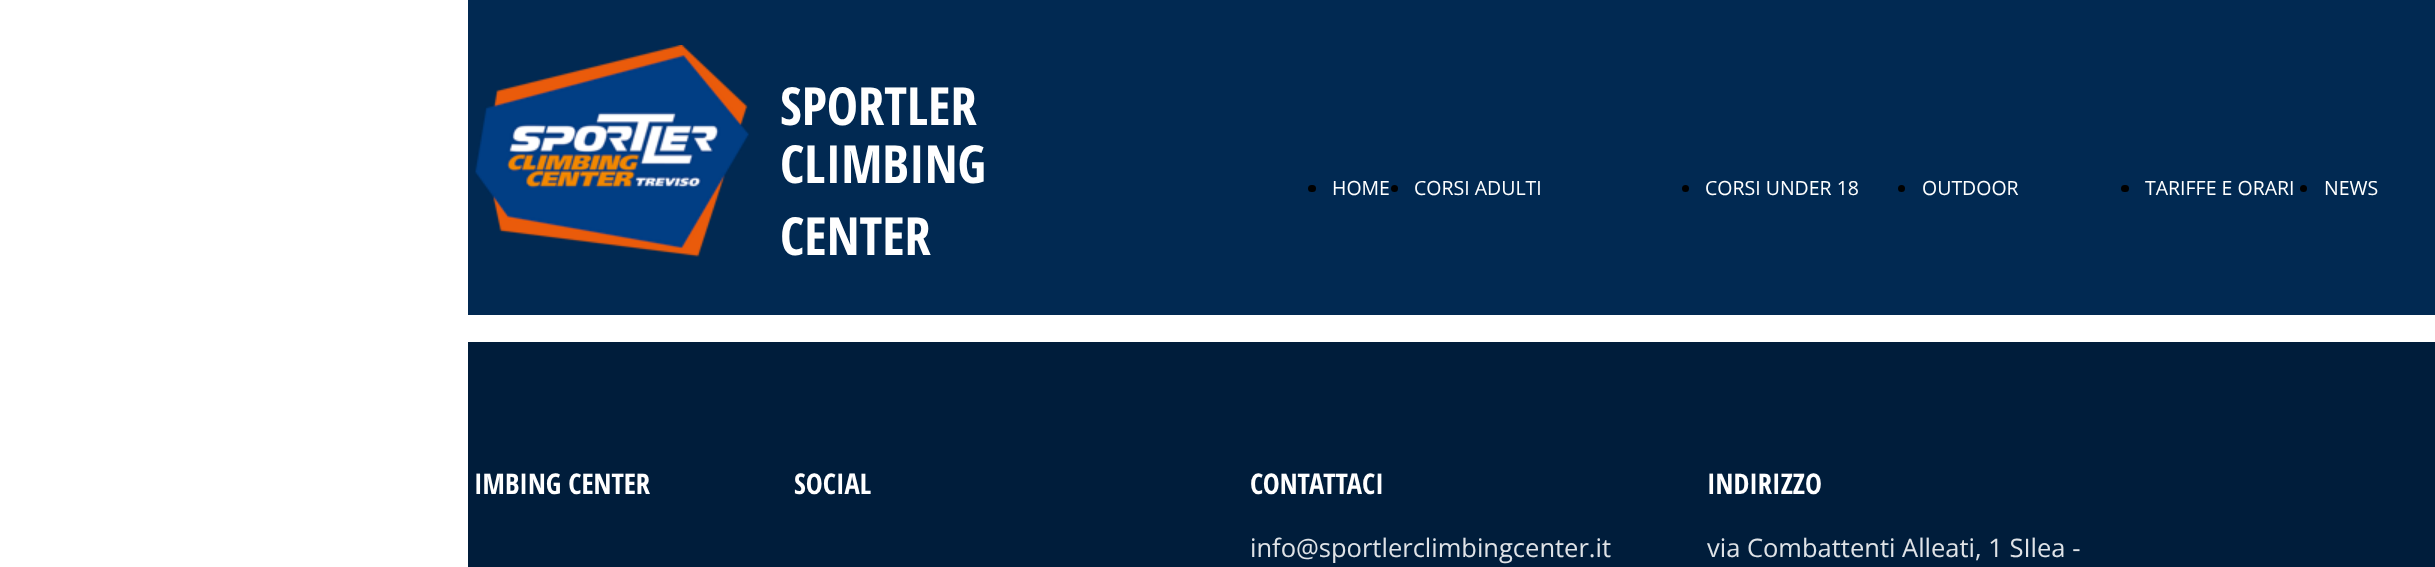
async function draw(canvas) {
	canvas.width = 2435;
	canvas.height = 567;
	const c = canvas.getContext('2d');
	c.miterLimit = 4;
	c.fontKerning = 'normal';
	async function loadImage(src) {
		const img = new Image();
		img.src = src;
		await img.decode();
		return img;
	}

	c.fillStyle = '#fff';
	c.fillRect(0, 0, 2435, 567);
	c.fillStyle = '#012952';
	c.fillRect(468, 0, 1967, 315);
	c.drawImage(await loadImage('img1.png'), 475, 45, 274, 212);
	c.font = 'bold 52.5px Open Sans Condensed';
	c.fillStyle = '#fff';
	for (const [text, x, y] of [
		['SPORTLER', 780, 125],
		['CLIMBING', 780, 183],
		['CENTER', 780, 255],
	]) {
		c.fillText(text, x, y);
	}
	c.fillStyle = '#000';
	c.beginPath();
	c.roundRect(1308, 185, 8, 7, 3.5);
	c.fill();
	c.font = '19.5px Open Sans';
	c.fillStyle = '#fff';
	c.fillText('HOME', 1332, 195);
	c.fillStyle = '#000';
	c.beginPath();
	c.arc(1394.5, 188.5, 3.5, 0, 2 * Math.PI);
	c.fill();
	c.fillStyle = '#fff';
	c.fillText('CORSI ADULTI', 1414, 195);
	c.fillStyle = '#000';
	c.beginPath();
	c.arc(1685.5, 188.5, 3.5, 0, 2 * Math.PI);
	c.fill();
	c.fillStyle = '#fff';
	c.fillText('CORSI UNDER 18', 1705, 195);
	c.fillStyle = '#000';
	c.beginPath();
	c.arc(1901.5, 188.5, 3.5, 0, 2 * Math.PI);
	c.fill();
	c.fillStyle = '#fff';
	c.fillText('OUTDOOR', 1922, 195);
	c.fillStyle = '#000';
	c.beginPath();
	c.roundRect(2121, 185, 8, 7, 3.5);
	c.fill();
	c.fillStyle = '#fff';
	c.fillText('TARIFFE E ORARI', 2145, 195);
	c.fillStyle = '#000';
	c.beginPath();
	c.arc(2303.5, 188.5, 3.5, 0, 2 * Math.PI);
	c.fill();
	c.fillStyle = '#fff';
	c.fillText('NEWS', 2324, 195);
	c.fillStyle = '#001d3b';
	c.fillRect(468, 342, 1967, 225);
	c.font = 'bold 28.5px Open Sans Condensed';
	c.fillStyle = '#fff';
	for (const [text, x, y] of [
		['IMBING CENTER', 474, 494],
		['SOCIAL', 794, 494],
		['CONTATTACI', 1250, 494],
		['INDIRIZZO', 1707, 494],
	]) {
		c.fillText(text, x, y);
	}
	c.font = '25.5px Open Sans';
	c.fillStyle = '#dfe3e7';
	c.fillText('info@sportlerclimbingcenter.it', 1250, 557);
	c.fillText('via Combattenti Alleati, 1 SIlea -', 1707, 557);
}

draw(document.querySelector('canvas'));
